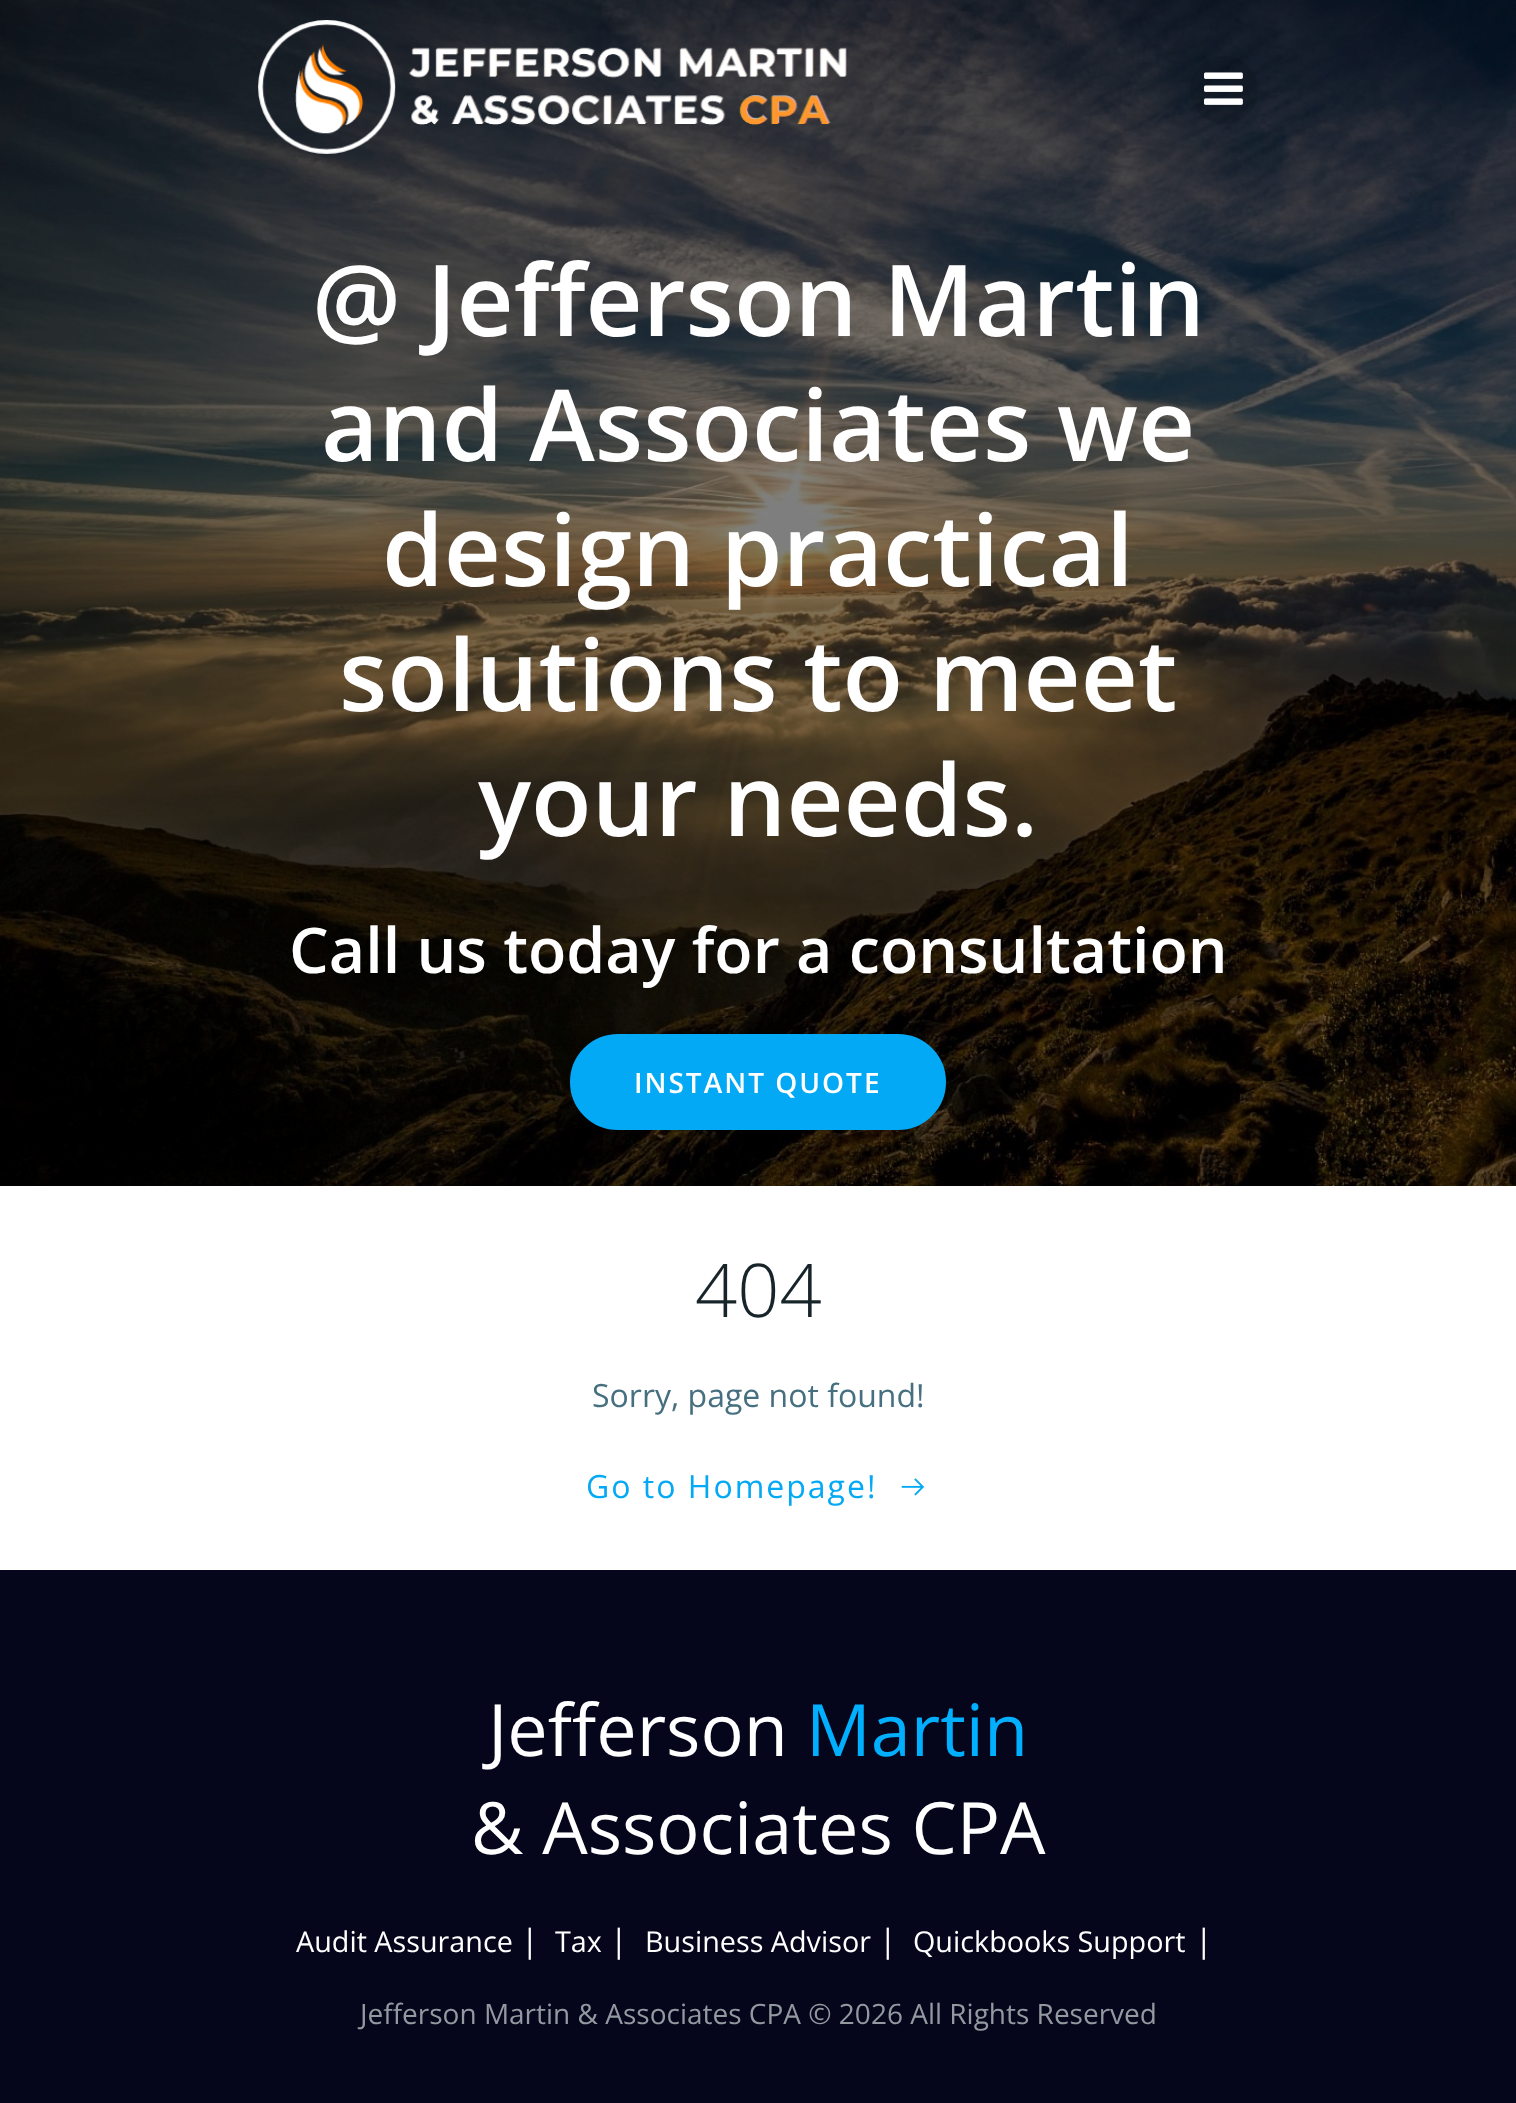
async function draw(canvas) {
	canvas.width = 1516;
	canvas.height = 2103;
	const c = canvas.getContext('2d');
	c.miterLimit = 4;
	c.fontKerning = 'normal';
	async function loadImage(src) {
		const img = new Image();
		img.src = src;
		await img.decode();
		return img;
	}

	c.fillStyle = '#fff';
	c.fillRect(0, 0, 1516, 2103);
	c.drawImage(await loadImage('img3.png'), 0, 0, 1516, 1186);
	c.drawImage(await loadImage('img1.png'), 258, 20, 590, 134);
	c.fillStyle = '#0000001a';
	c.beginPath();
	c.arc(1224, 90, 34, 0, 2 * Math.PI);
	c.fill();
	c.drawImage(await loadImage('img2.png'), 1204, 72, 39, 33);
	c.font = '600 99.25px Open Sans';
	c.fillStyle = '#fff';
	for (const [text, x, y] of [
		['@ Jefferson Martin', 312, 336],
		['and Associates we', 321, 461],
		['design practical', 382, 586],
		['solutions to meet', 339, 711],
		['your needs.', 478, 836],
	]) {
		c.fillText(text, x, y);
	}
	c.font = '600 62.75px Open Sans';
	c.fillText('Call us today for a consultation', 289, 973);
	c.fillStyle = '#03a9f4';
	c.beginPath();
	c.roundRect(572, 1036, 372, 92, 46);
	c.fill();
	c.strokeStyle = '#03a9f4';
	c.lineWidth = 4;
	c.stroke();
	c.letterSpacing = '2px';
	c.font = '600 28px Open Sans';
	c.fillStyle = '#fff';
	c.fillText('INSTANT QUOTE', 634, 1093);
	c.letterSpacing = '0px';
	c.font = '300 74px Open Sans';
	c.fillStyle = '#17252a';
	c.fillText('404', 695, 1317);
	c.font = '32px Open Sans';
	c.fillStyle = '#46707f';
	c.fillText('Sorry, page not found!', 592, 1407);
	c.letterSpacing = '2px';
	c.fillStyle = '#03a9f4';
	c.fillText('Go to Homepage!', 586, 1498);
	c.drawImage(await loadImage('img4.png'), 901, 1478, 24, 18);
	c.fillStyle = '#05051c';
	c.fillRect(0, 1570, 1516, 533);
	c.letterSpacing = '0px';
	c.font = '72px Open Sans';
	c.fillStyle = '#fff';
	c.fillText('Jefferson', 488, 1756);
	c.fillStyle = '#00b0ff';
	c.fillText('Martin', 806, 1756);
	c.fillStyle = '#fff';
	c.fillText('& Associates CPA', 471, 1854);
	c.font = '28.75px Open Sans';
	c.fillText('Audit Assurance', 296, 1952);
	c.font = '32px Open Sans';
	c.fillText('|', 521, 1952);
	c.font = '28.75px Open Sans';
	c.fillText('Tax', 555, 1952);
	c.font = '32px Open Sans';
	c.fillText('|', 610, 1952);
	c.font = '28.75px Open Sans';
	c.fillText('Business Advisor', 645, 1952);
	c.font = '32px Open Sans';
	c.fillText('|', 879, 1952);
	c.font = '28.75px Open Sans';
	c.fillText('Quickbooks Support', 913, 1952);
	c.font = '32px Open Sans';
	c.fillText('|', 1195, 1952);
	c.font = '28px Open Sans';
	c.fillStyle = '#92999f';
	c.fillText('Jefferson Martin & Associates CPA © 2026 All Rights Reserved', 360, 2024);
}

draw(document.querySelector('canvas'));
